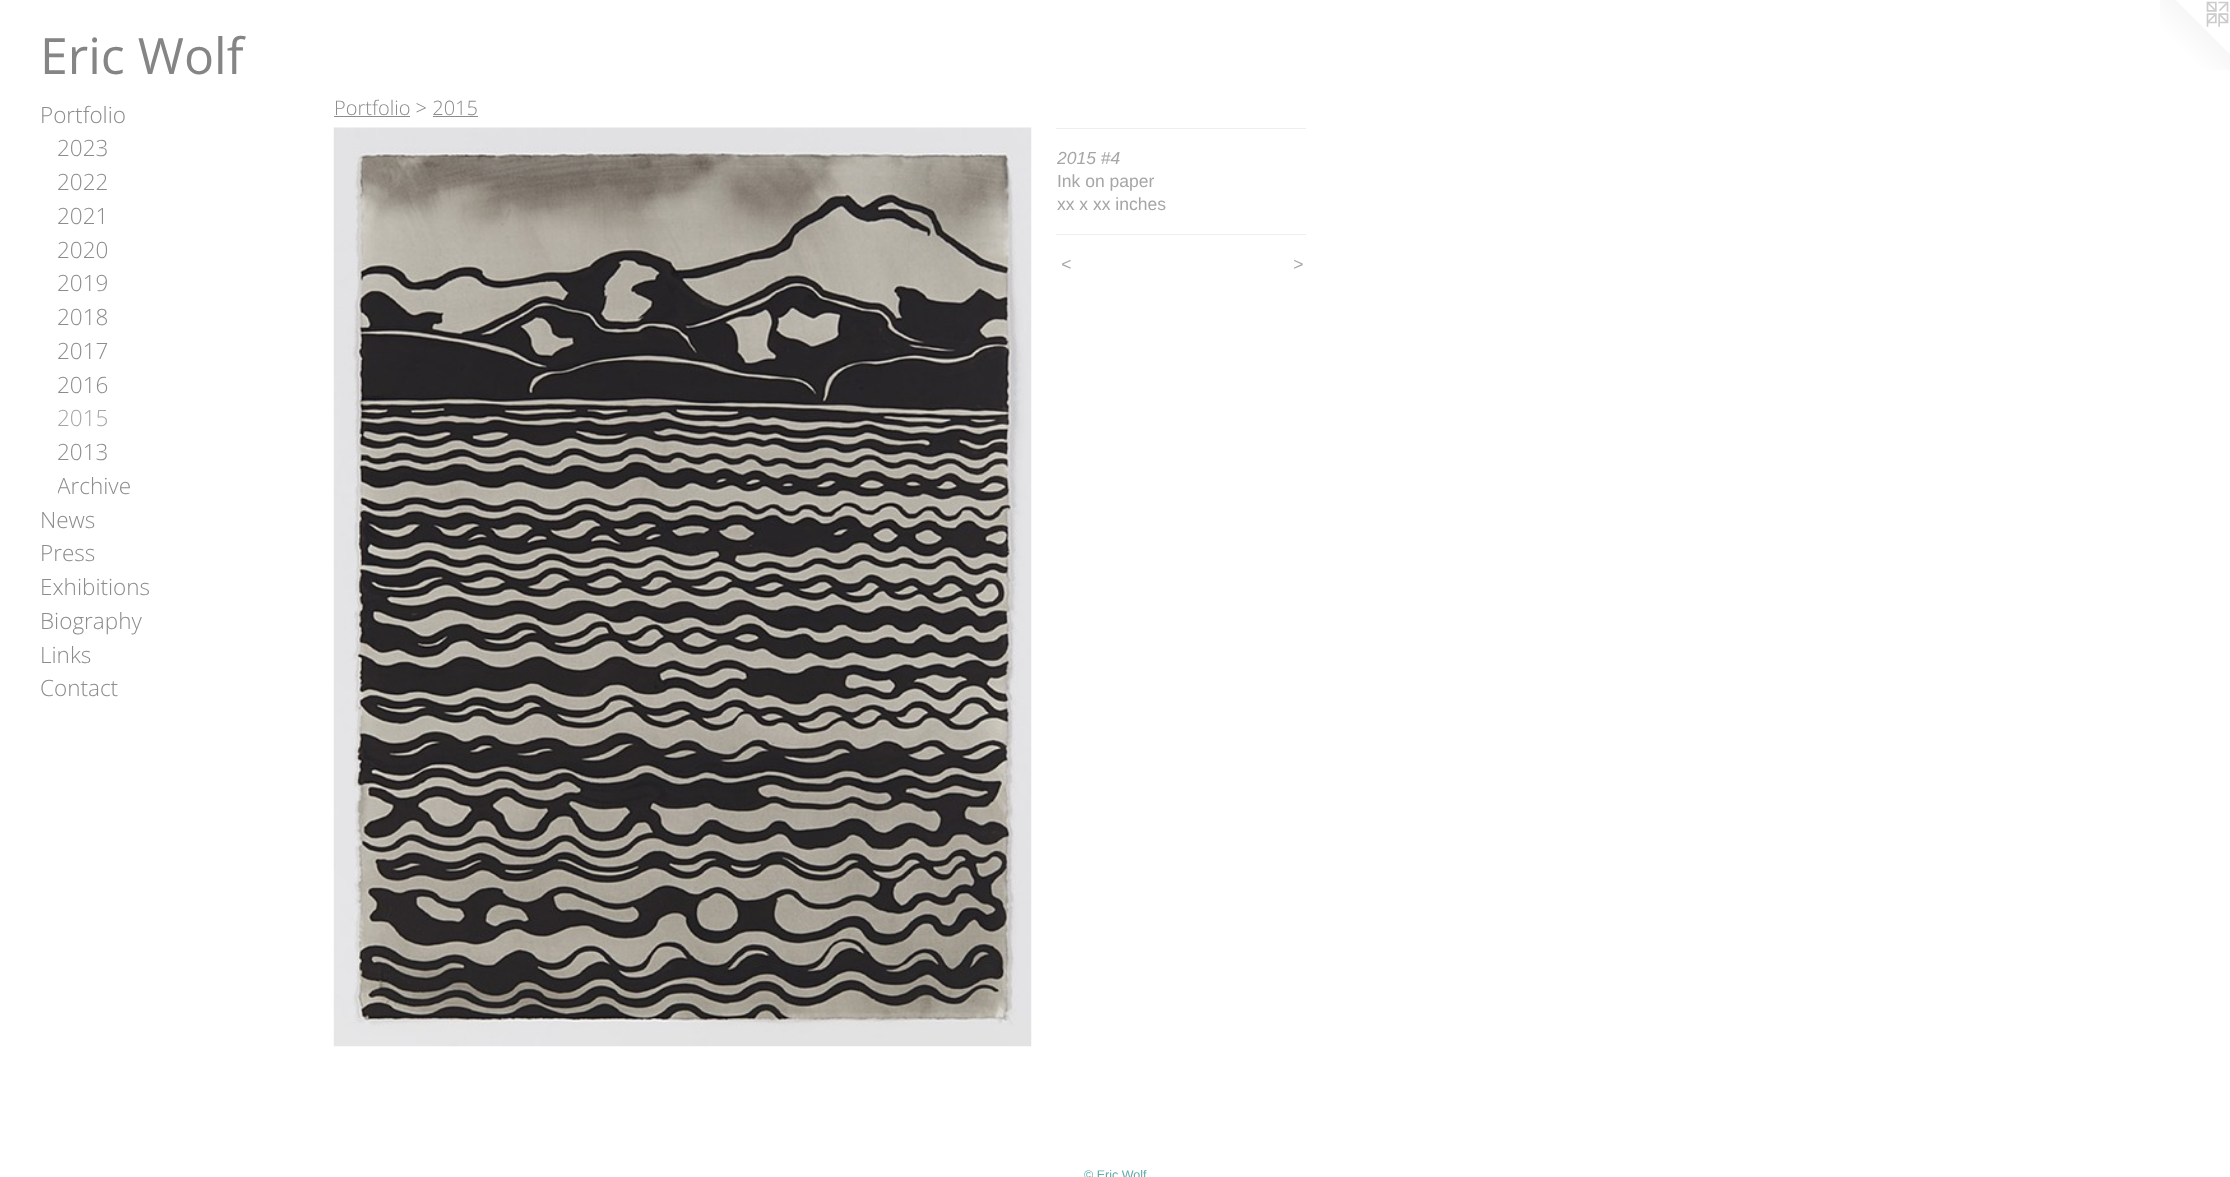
async function draw(canvas) {
	canvas.width = 2230;
	canvas.height = 1177;
	const c = canvas.getContext('2d');
	c.miterLimit = 4;
	c.fontKerning = 'normal';
	async function loadImage(src) {
		const img = new Image();
		img.src = src;
		await img.decode();
		return img;
	}

	c.fillStyle = '#fff';
	c.fillRect(0, 0, 2230, 1177);
	c.font = '50px Open Sans';
	c.fillStyle = '#858585';
	c.fillText('Eric Wolf', 40, 74);
	c.drawImage(await loadImage('img1.png'), 2160, 0, 70, 70);
	c.font = '300 22.5px Open Sans';
	c.fillStyle = '#8c8c8c';
	for (const [text, x, y] of [
		['Portfolio', 40, 123],
		['2023', 57, 156],
		['2022', 57, 190],
		['2021', 57, 224],
		['2020', 57, 258],
		['2019', 57, 291],
		['2018', 57, 325],
		['2017', 57, 359],
		['2016', 57, 393],
	]) {
		c.fillText(text, x, y);
	}
	c.fillStyle = '#a6a6a6';
	c.fillText('2015', 57, 426);
	c.fillStyle = '#8c8c8c';
	c.fillText('2013', 57, 460);
	c.save();
	c.beginPath();
	c.rect(58, 469, 232, 34);
	c.clip();
	c.fillText('Archive', 57, 494);
	c.restore();
	for (const [text, x, y] of [
		['News', 40, 528],
		['Press', 40, 561],
		['Exhibitions', 40, 595],
		['Biography', 40, 629],
		['Links', 40, 663],
		['Contact', 40, 696],
	]) {
		c.fillText(text, x, y);
	}
	c.font = '300 20px Open Sans';
	c.fillText('Portfolio > 2015', 334, 115);
	c.fillRect(334, 116, 76, 1);
	c.fillRect(433, 116, 45, 1);
	c.drawImage(await loadImage('img2.png'), 333, 127, 699, 920);
	c.fillStyle = '#eee';
	c.fillRect(1056, 128, 250, 1);
	c.font = 'italic 17.5px Liberation Sans';
	c.fillStyle = '#a6a6a6';
	c.fillText('2015 #4', 1057, 164);
	c.font = '17.5px Liberation Sans';
	c.fillText('Ink on paper', 1057, 187);
	c.fillText('xx x xx inches', 1057, 210);
	c.fillStyle = '#eee';
	c.fillRect(1056, 234, 250, 1);
	c.letterSpacing = '1px';
	c.font = 'italic 17.5px Liberation Sans';
	c.fillStyle = '#a6a6a6';
	c.fillText('<', 1061, 270);
	c.fillText('>', 1293, 270);
	c.letterSpacing = '0px';
	c.font = '12.5px Liberation Sans';
	c.fillStyle = '#5dabab';
	c.fillText('© Eric Wolf', 1084, 1179);
}

draw(document.querySelector('canvas'));
